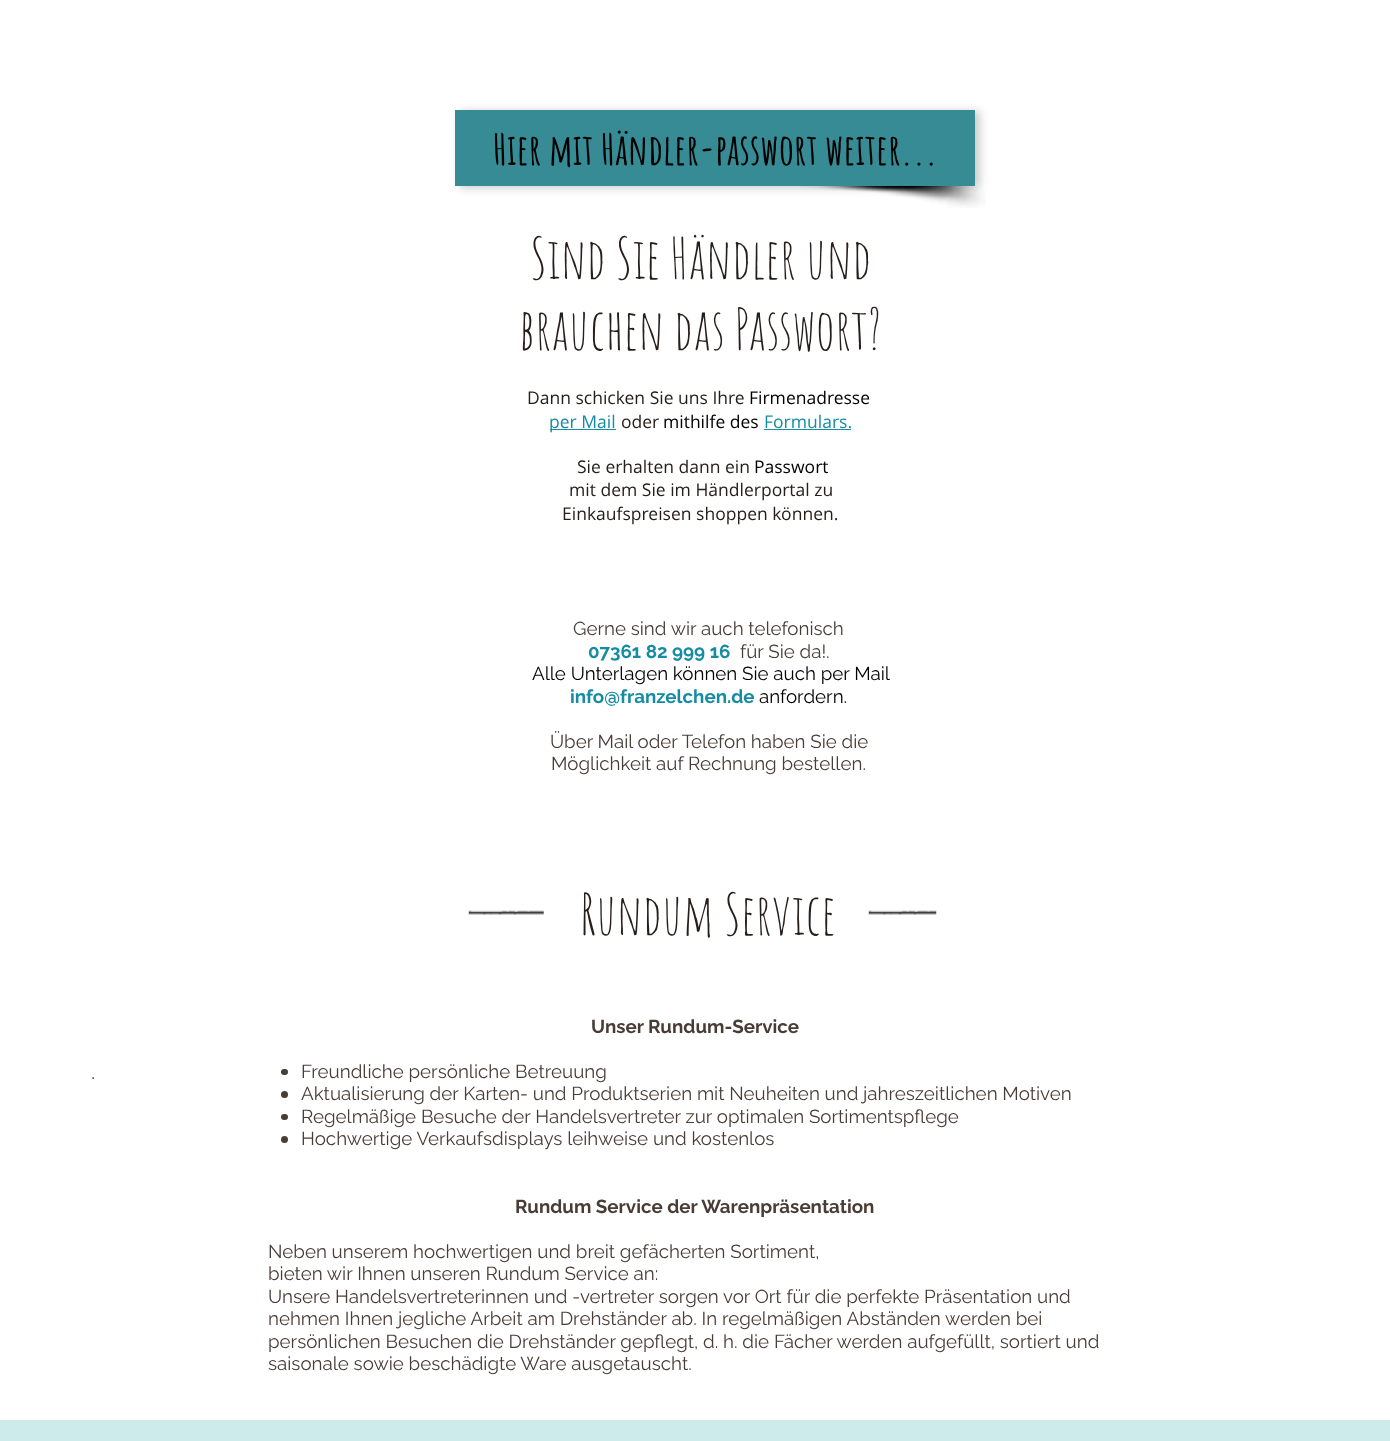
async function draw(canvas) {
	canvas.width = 1390;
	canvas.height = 1441;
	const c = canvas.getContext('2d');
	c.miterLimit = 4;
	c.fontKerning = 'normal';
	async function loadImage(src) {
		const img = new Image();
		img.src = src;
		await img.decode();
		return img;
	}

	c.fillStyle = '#fff';
	c.fillRect(0, 0, 1390, 1441);
	c.drawImage(await loadImage('img1.png'), 800, 186, 186, 22);
	c.fillStyle = '#00000033';
	c.filter = 'blur(4px)';
	c.beginPath();
	c.rect(460, 111, 520, 77);
	c.fill();
	c.filter = 'none';
	c.fillStyle = '#378b94';
	c.fillRect(455, 110, 520, 76);
	c.font = 'bold 42.5px Amatic SC';
	c.fillStyle = '#000';
	c.fillText('Hier mit Händler-passwort weiter...', 493, 165);
	c.font = '56.25px Amatic SC';
	c.fillStyle = '#251e1b';
	c.fillText('Sind Sie Händler und', 530, 279);
	c.fillText('brauchen das Passwort?', 519, 350);
	c.font = '17.5px Open Sans';
	c.fillText('Dann schicken Sie uns Ihre', 527, 404);
	c.fillStyle = '#000';
	c.fillText('Firmenadresse', 749, 404);
	c.fillStyle = '#158ca3';
	c.fillRect(550, 429, 66, 1);
	c.fillText('per Mail', 549, 428);
	c.fillStyle = '#251e1b';
	c.fillText('oder', 621, 428);
	c.fillStyle = '#000';
	c.fillText('mithilfe des', 663, 428);
	c.fillStyle = '#158ca3';
	c.fillText('Formulars.', 764, 428);
	c.fillRect(764, 429, 87, 1);
	c.fillStyle = '#251e1b';
	c.fillText('Sie erhalten dann ein', 577, 473);
	c.fillStyle = '#000';
	c.fillText('Passwort', 754, 473);
	c.fillStyle = '#251e1b';
	c.fillText('mit dem Sie im Händlerportal zu', 569, 496);
	c.fillText('Einkaufspreisen shoppen können.', 562, 520);
	c.font = '18.75px Raleway';
	c.fillStyle = '#493c36';
	c.fillText('Gerne sind wir auch telefonisch', 573, 635);
	c.font = 'bold 18.75px Raleway';
	c.fillStyle = '#158ca3';
	c.fillText('07361 82 999 16', 588, 658);
	c.font = '18.75px Raleway';
	c.fillStyle = '#493c36';
	c.fillText('für Sie da!.', 740, 658);
	c.fillStyle = '#000';
	c.fillText('Alle Unterlagen können Sie auch per Mail', 532, 680);
	c.font = 'bold 18.75px Raleway';
	c.fillStyle = '#158ca3';
	c.fillText('info@franzelchen.de', 570, 703);
	c.font = '18.75px Raleway';
	c.fillStyle = '#000';
	c.fillText('anfordern.', 759, 703);
	c.fillStyle = '#493c36';
	c.fillText('Über Mail oder Telefon haben Sie die', 550, 748);
	c.fillText('Möglichkeit auf Rechnung bestellen.', 551, 770);
	c.font = '300 20px "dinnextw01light"';
	c.fillText('.', 91, 1079);
	c.drawImage(await loadImage('img2.png'), 468, 910, 76, 5);
	c.font = '56.25px Amatic SC';
	c.fillStyle = '#251e1b';
	c.fillText('Rundum Service', 580, 935);
	c.drawImage(await loadImage('img3.png'), 868, 910, 69, 5);
	c.font = 'bold 18.75px Raleway';
	c.fillStyle = '#493c36';
	c.fillText('Unser Rundum-Service', 591, 1033);
	c.beginPath();
	c.roundRect(281, 1069, 7, 6, 3);
	c.fill();
	c.font = '18.75px Raleway';
	c.fillText('Freundliche persönliche Betreuung', 301, 1078);
	c.beginPath();
	c.arc(284.5, 1094.5, 3.5, 0, 2 * Math.PI);
	c.fill();
	c.fillText('Aktualisierung der Karten- und Produktserien mit Neuheiten und jahreszeitlichen Motiven', 301, 1100);
	c.beginPath();
	c.roundRect(281, 1114, 7, 6, 3);
	c.fill();
	c.fillText('Regelmäßige Besuche der Handelsvertreter zur optimalen Sortimentspflege', 301, 1123);
	c.beginPath();
	c.arc(284.5, 1139.5, 3.5, 0, 2 * Math.PI);
	c.fill();
	c.fillText('Hochwertige Verkaufsdisplays leihweise und kostenlos', 301, 1145);
	c.font = 'bold 18.75px Raleway';
	c.fillText('Rundum Service der Warenpräsentation', 515, 1213);
	c.font = '18.75px Raleway';
	for (const [text, x, y] of [
		['Neben unserem hochwertigen und breit gefächerten Sortiment,', 268, 1258],
		['bieten wir Ihnen unseren Rundum Service an:', 268, 1280],
		['Unsere Handelsvertreterinnen und -vertreter sorgen vor Ort für die perfekte Präsentation und', 268, 1303],
		['nehmen Ihnen jegliche Arbeit am Drehständer ab. In regelmäßigen Abständen werden bei', 268, 1325],
		['persönlichen Besuchen die Drehständer gepflegt, d. h. die Fächer werden aufgefüllt, sortiert und', 268, 1348],
		['saisonale sowie beschädigte Ware ausgetauscht.', 268, 1370],
	]) {
		c.fillText(text, x, y);
	}
	c.fillStyle = '#ccebea';
	c.fillRect(0, 1420, 1390, 21);
}

draw(document.querySelector('canvas'));
